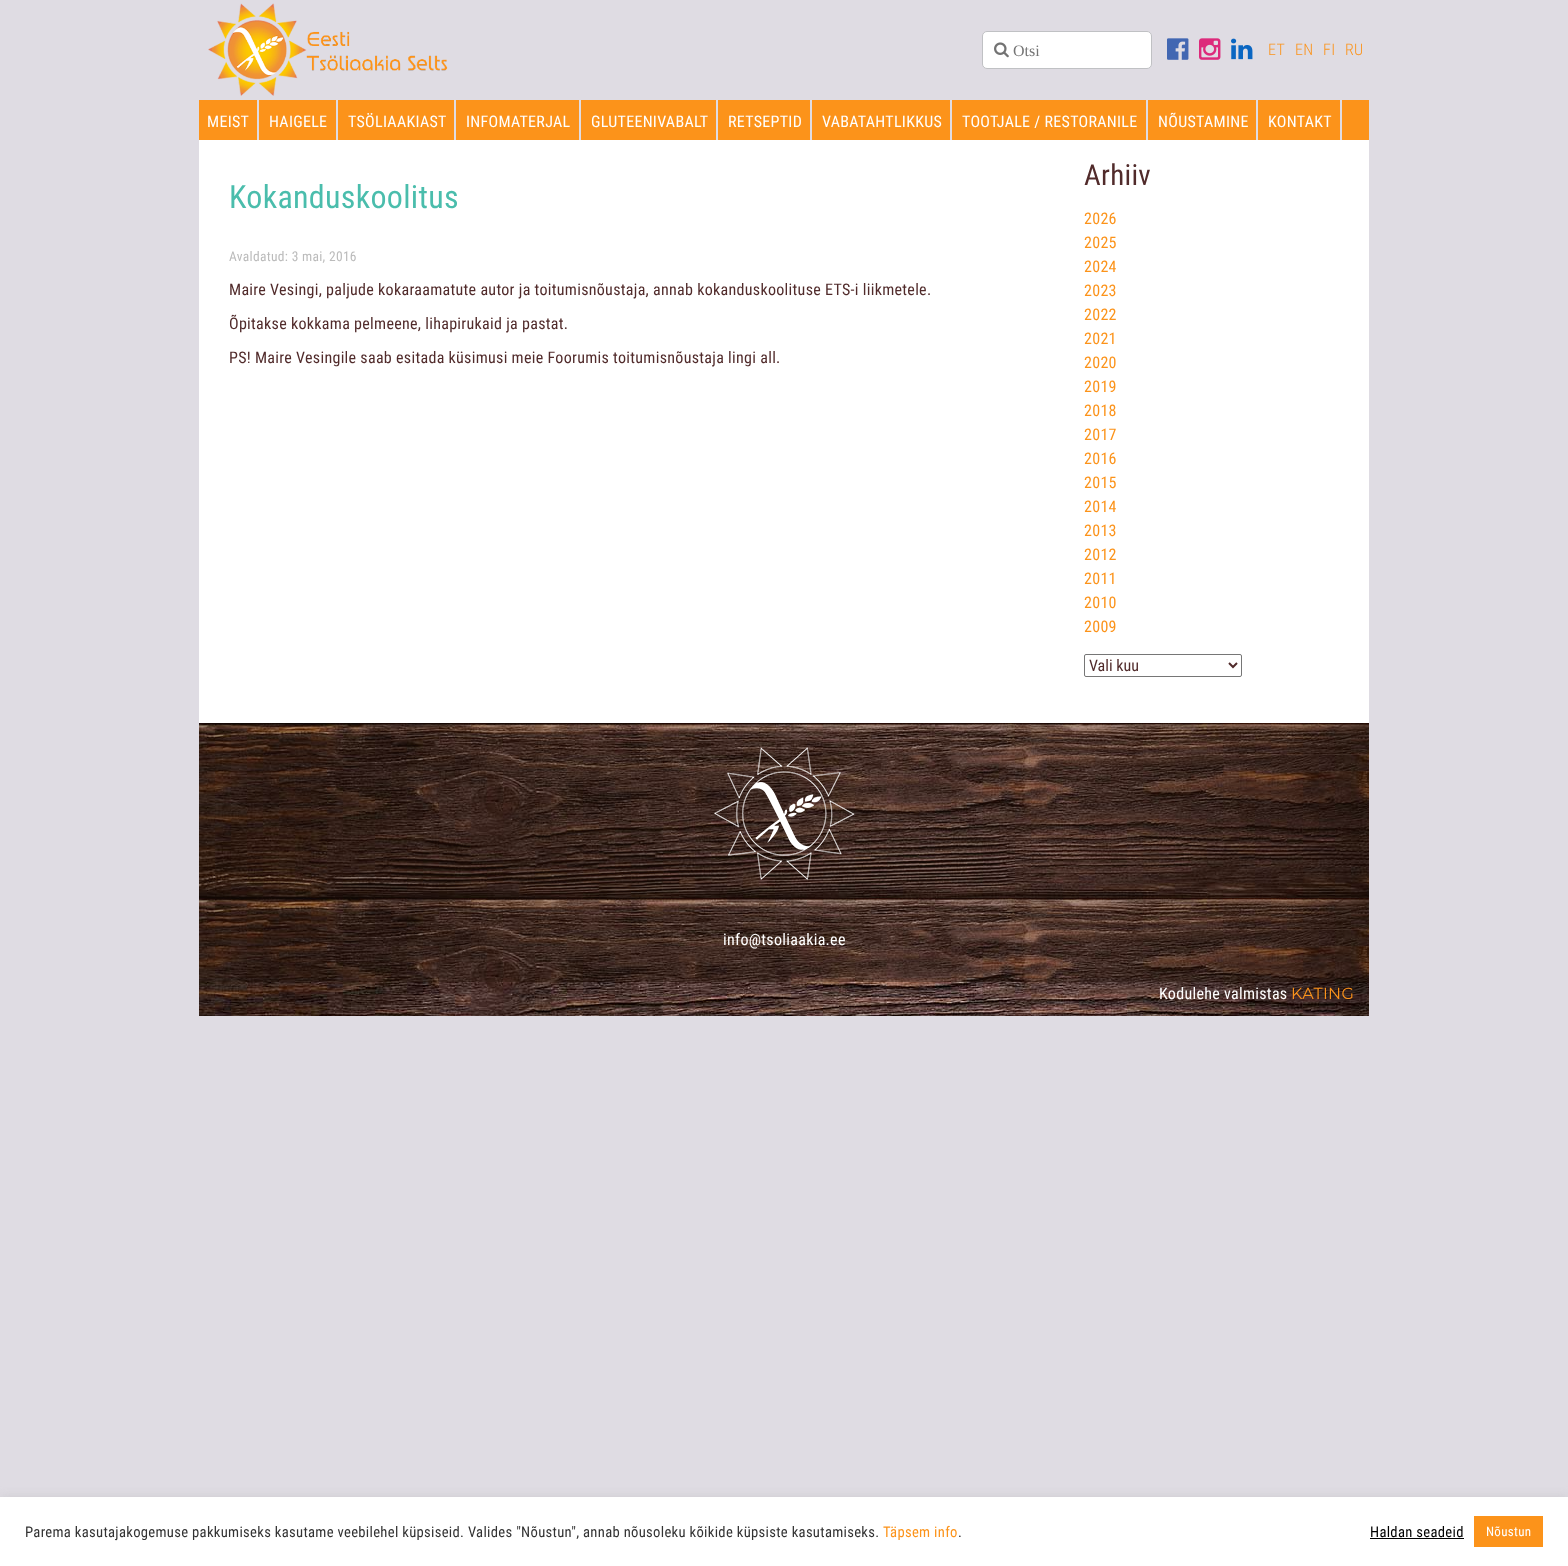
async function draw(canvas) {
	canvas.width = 1568;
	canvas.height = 1566;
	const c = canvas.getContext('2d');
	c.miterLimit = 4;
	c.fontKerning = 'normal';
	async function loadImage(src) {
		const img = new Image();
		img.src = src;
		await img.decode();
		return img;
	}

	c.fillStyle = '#dfdce3';
	c.fillRect(0, 0, 1568, 1566);
	c.drawImage(await loadImage('img1.png'), 208, 3, 240, 93);
	c.fillStyle = '#fff';
	c.beginPath();
	c.roundRect(982.5, 31.5, 169, 37, 4.5);
	c.fill();
	c.strokeStyle = '#c0c1c4';
	c.stroke();
	c.drawImage(await loadImage('img2.png'), 994, 42, 15, 16);
	c.font = '16px Liberation Serif';
	c.fillStyle = '#757575';
	c.fillText('Otsi', 1013, 56);
	c.drawImage(await loadImage('img3.png'), 1167, 38, 22, 22);
	c.drawImage(await loadImage('img4.png'), 1199, 38, 22, 22);
	c.drawImage(await loadImage('img5.png'), 1231, 38, 22, 22);
	c.letterSpacing = '0.3px';
	c.font = '300 16px Roboto Condensed';
	c.fillStyle = '#fc931a';
	for (const [text, x, y] of [
		['ET', 1268, 55],
		['EN', 1295, 55],
		['FI', 1323, 55],
		['RU', 1345, 55],
	]) {
		c.fillText(text, x, y);
	}
	c.fillRect(199, 100, 1170, 40);
	c.fillStyle = '#dfdce3';
	c.fillRect(257, 100, 2, 40);
	c.font = '16px Roboto Condensed';
	c.fillStyle = '#fff';
	c.fillText('MEIST', 207, 127);
	c.fillStyle = '#dfdce3';
	c.fillRect(336, 100, 2, 40);
	c.fillStyle = '#fff';
	c.fillText('HAIGELE', 269, 127);
	c.fillStyle = '#dfdce3';
	c.fillRect(454, 100, 2, 40);
	c.fillStyle = '#fff';
	c.fillText('TSÖLIAAKIAST', 348, 127);
	c.fillStyle = '#dfdce3';
	c.fillRect(579, 100, 2, 40);
	c.fillStyle = '#fff';
	c.fillText('INFOMATERJAL', 466, 127);
	c.fillStyle = '#dfdce3';
	c.fillRect(716, 100, 2, 40);
	c.fillStyle = '#fff';
	c.fillText('GLUTEENIVABALT', 591, 127);
	c.fillStyle = '#dfdce3';
	c.fillRect(810, 100, 2, 40);
	c.fillStyle = '#fff';
	c.fillText('RETSEPTID', 728, 127);
	c.fillStyle = '#dfdce3';
	c.fillRect(950, 100, 2, 40);
	c.fillStyle = '#fff';
	c.fillText('VABATAHTLIKKUS', 822, 127);
	c.fillStyle = '#dfdce3';
	c.fillRect(1146, 100, 2, 40);
	c.fillStyle = '#fff';
	c.fillText('TOOTJALE / RESTORANILE', 962, 127);
	c.fillStyle = '#dfdce3';
	c.fillRect(1256, 100, 2, 40);
	c.fillStyle = '#fff';
	c.fillText('NÕUSTAMINE', 1158, 127);
	c.fillStyle = '#dfdce3';
	c.fillRect(1340, 100, 2, 40);
	c.fillStyle = '#fff';
	c.fillText('KONTAKT', 1268, 127);
	c.fillRect(199, 140, 1170, 583);
	c.font = '32px Roboto Condensed';
	c.fillStyle = '#4abdac';
	c.fillText('Kokanduskoolitus', 229, 208);
	c.font = '13.5px Roboto Condensed';
	c.fillStyle = '#bbb';
	c.fillText('Avaldatud: 3 mai, 2016', 229, 261);
	c.font = '16px Roboto Condensed';
	c.fillStyle = '#512b2b';
	for (const [text, x, y] of [
		['Maire Vesingi, paljude kokaraamatute autor ja toitumisnõustaja, annab kokanduskoolituse ETS-i liikmetele.', 229, 295],
		['Õpitakse kokkama pelmeene, lihapirukaid ja pastat.', 229, 329],
		['PS! Maire Vesingile saab esitada küsimusi meie Foorumis toitumisnõustaja lingi all.', 229, 363],
	]) {
		c.fillText(text, x, y);
	}
	c.font = '29px Roboto Condensed';
	c.fillText('Arhiiv', 1084, 185);
	c.font = '16px Roboto Condensed';
	c.fillStyle = '#fc931a';
	for (const [text, x, y] of [
		['2026', 1084, 224],
		['2025', 1084, 248],
		['2024', 1084, 272],
		['2023', 1084, 296],
		['2022', 1084, 320],
		['2021', 1084, 344],
		['2020', 1084, 368],
		['2019', 1084, 392],
		['2018', 1084, 416],
		['2017', 1084, 440],
		['2016', 1084, 464],
		['2015', 1084, 488],
		['2014', 1084, 512],
		['2013', 1084, 536],
		['2012', 1084, 560],
		['2011', 1084, 584],
		['2010', 1084, 608],
		['2009', 1084, 632],
	]) {
		c.fillText(text, x, y);
	}
	c.beginPath();
	c.roundRect(1084.5, 654.5, 157, 22, 1.5);
	c.strokeStyle = '#767676';
	c.stroke();
	c.beginPath();
	c.moveTo(1229, 663);
	c.lineTo(1233, 667);
	c.lineTo(1237, 663);
	c.strokeStyle = '#512b2b';
	c.lineWidth = 2;
	c.stroke();
	c.letterSpacing = '0px';
	c.fillStyle = '#512b2b';
	c.fillText('Vali kuu', 1089, 671);
	c.drawImage(await loadImage('img6.png'), 199, 723, 1170, 293);
	c.fillStyle = '#26150b66';
	c.fillRect(199, 723, 1170, 259);
	c.drawImage(await loadImage('img7.png'), 714, 747, 141, 133);
	c.letterSpacing = '0.3px';
	c.fillStyle = '#fff';
	c.fillText('info@tsoliaakia.ee', 723, 945);
	c.fillText('Kodulehe valmistas', 1159, 999);
	c.font = '100 16px Montserrat';
	c.fillStyle = '#fc931a';
	c.fillText('KATING', 1291, 999);
	c.fillStyle = '#acabab4d';
	c.filter = 'blur(5px)';
	c.beginPath();
	c.rect(0, 1496, 1568, 69);
	c.fill();
	c.filter = 'none';
	c.fillStyle = '#fff';
	c.fillRect(0, 1497, 1568, 69);
	c.font = '14.67px Roboto Condensed';
	c.fillStyle = '#333';
	c.fillText('Parema kasutajakogemuse pakkumiseks kasutame veebilehel küpsiseid. Valides "Nõustun", annab nõusoleku kõikide küpsiste kasutamiseks.', 25, 1537);
	c.fillStyle = '#fc931a';
	c.fillText('Täpsem info', 883, 1537);
	c.fillStyle = '#333';
	c.fillText('.', 958, 1537);
	c.fillStyle = '#000';
	c.fillText('Haldan seadeid', 1370, 1537);
	c.fillRect(1370, 1538, 94, 1);
	c.fillStyle = '#fc931a';
	c.fillRect(1474, 1516, 69, 31);
	c.font = '13px Roboto Condensed';
	c.fillStyle = '#fff';
	c.fillText('Nõustun', 1486, 1536);
}

draw(document.querySelector('canvas'));
